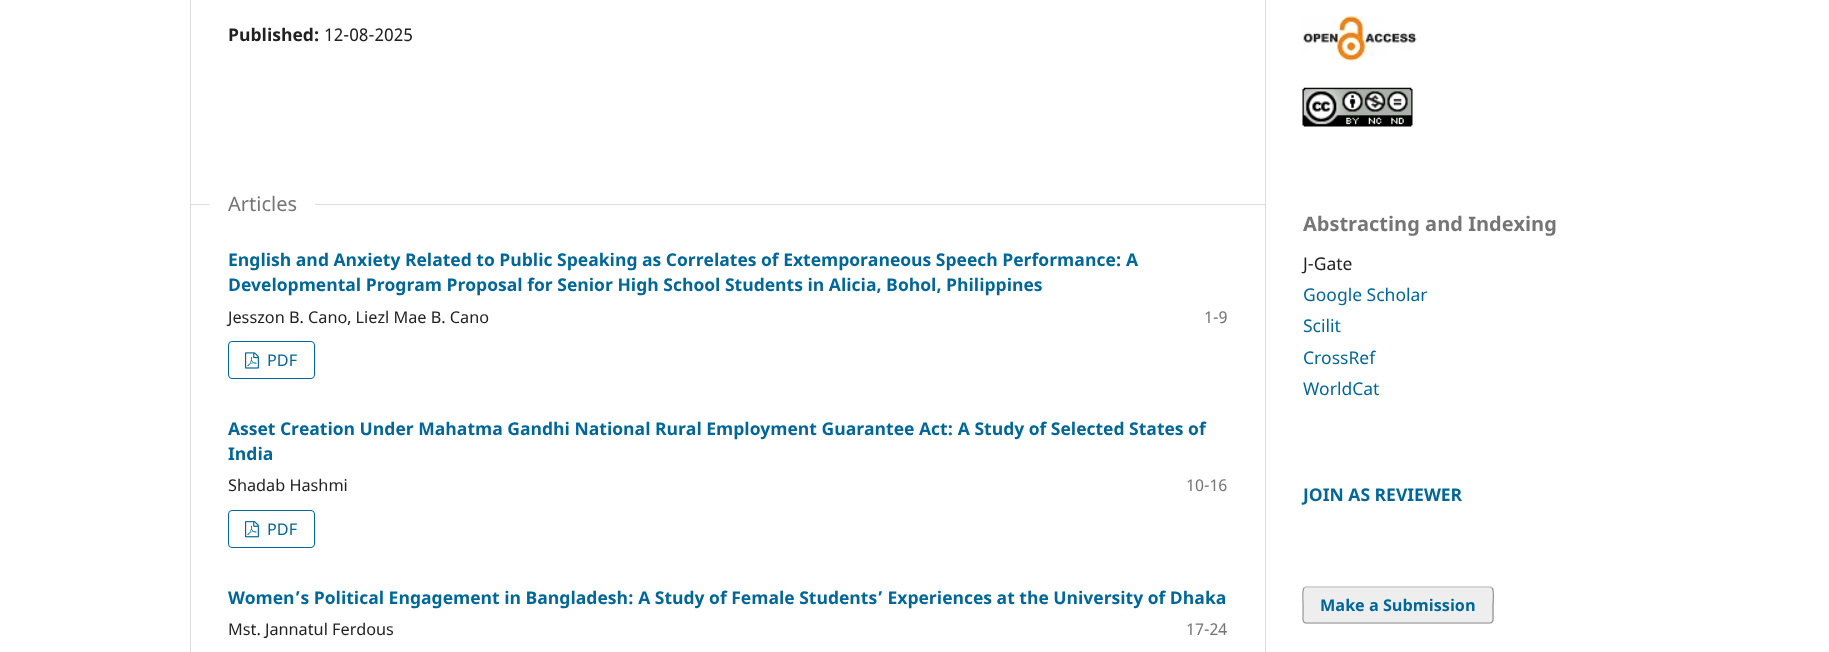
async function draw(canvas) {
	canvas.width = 1829;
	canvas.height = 652;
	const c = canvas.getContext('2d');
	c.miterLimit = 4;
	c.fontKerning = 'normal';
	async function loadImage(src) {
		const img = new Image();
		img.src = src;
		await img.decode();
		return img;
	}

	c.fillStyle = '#fff';
	c.fillRect(0, 0, 1829, 652);
	c.fillStyle = '#ddd';
	c.fillRect(190, 0, 1, 652);
	c.font = 'bold 17.5px Noto Sans';
	c.fillStyle = '#212121';
	c.fillText('Published:', 228, 41);
	c.font = '17.5px Noto Sans';
	c.fillText('12-08-2025', 324, 41);
	c.fillStyle = '#ddd';
	c.fillRect(190, 204, 1075, 1);
	c.fillStyle = '#fff';
	c.fillRect(209, 204, 106, 1);
	c.font = '20px Noto Sans';
	c.fillStyle = '#757575';
	c.fillText('Articles', 228, 211);
	c.font = 'bold 17.5px Noto Sans';
	c.fillStyle = '#006798';
	c.fillText('English and Anxiety Related to Public Speaking as Correlates of Extemporaneous Speech Performance: A', 228, 266);
	c.fillText('Developmental Program Proposal for Senior High School Students in Alicia, Bohol, Philippines', 228, 291);
	c.font = '16.25px Noto Sans';
	c.fillStyle = '#212121';
	c.fillText('Jesszon B. Cano, Liezl Mae B. Cano', 228, 323);
	c.fillStyle = '#757575';
	c.fillText('1-9', 1204, 323);
	c.beginPath();
	c.roundRect(228.5, 341.5, 86, 37, 3.5);
	c.strokeStyle = '#006798';
	c.stroke();
	c.drawImage(await loadImage('img1.png'), 245, 352, 14, 17);
	c.fillStyle = '#006798';
	c.fillText('PDF', 267, 366);
	c.font = 'bold 17.5px Noto Sans';
	c.fillText('Asset Creation Under Mahatma Gandhi National Rural Employment Guarantee Act: A Study of Selected States of', 228, 435);
	c.fillText('India', 228, 460);
	c.font = '16.25px Noto Sans';
	c.fillStyle = '#212121';
	c.fillText('Shadab Hashmi', 228, 491);
	c.fillStyle = '#757575';
	c.fillText('10-16', 1186, 491);
	c.beginPath();
	c.roundRect(228.5, 510.5, 86, 37, 3.5);
	c.stroke();
	c.drawImage(await loadImage('img2.png'), 245, 521, 14, 17);
	c.fillStyle = '#006798';
	c.fillText('PDF', 267, 535);
	c.font = 'bold 17.5px Noto Sans';
	c.fillText('Women’s Political Engagement in Bangladesh: A Study of Female Students’ Experiences at the University of Dhaka', 228, 604);
	c.font = '16.25px Noto Sans';
	c.fillStyle = '#212121';
	c.fillText('Mst. Jannatul Ferdous', 228, 635);
	c.fillStyle = '#757575';
	c.fillText('17-24', 1186, 635);
	c.fillStyle = '#ddd';
	c.fillRect(1265, 0, 1, 652);
	c.drawImage(await loadImage('img3.png'), 1303, 16, 114, 45);
	c.drawImage(await loadImage('img4.png'), 1302, 87, 111, 40);
	c.font = 'bold 20px Noto Sans';
	c.fillStyle = '#757575';
	c.fillText('Abstracting and Indexing', 1303, 231);
	c.font = '17.5px Noto Sans';
	c.fillStyle = '#212121';
	c.fillText('J-Gate', 1303, 270);
	c.fillStyle = '#006798';
	for (const [text, x, y] of [
		['Google Scholar', 1303, 301],
		['Scilit', 1303, 332],
		['CrossRef', 1303, 364],
		['WorldCat', 1303, 395],
	]) {
		c.fillText(text, x, y);
	}
	c.font = 'bold 17.5px Noto Sans';
	c.fillText('JOIN AS REVIEWER', 1303, 501);
	c.fillStyle = '#eee';
	c.beginPath();
	c.roundRect(1303, 586, 191, 38, 4);
	c.fill();
	c.beginPath();
	c.moveTo(1304, 588);
	c.lineTo(1306, 587);
	c.lineTo(1490, 587);
	c.lineTo(1492, 588);
	c.strokeStyle = '#bbb';
	c.lineWidth = 1.2;
	c.stroke();
	c.beginPath();
	c.moveTo(1492, 588);
	c.bezierCurveTo(1494.5, 590, 1493, 602, 1493, 605);
	c.lineTo(1493, 615);
	c.bezierCurveTo(1493, 617.5, 1494, 623, 1490, 623);
	c.lineTo(1306, 623);
	c.bezierCurveTo(1302, 623, 1303, 617.5, 1303, 615);
	c.lineTo(1303, 605);
	c.bezierCurveTo(1303, 602, 1302, 590, 1304, 588);
	c.strokeStyle = '#00000066';
	c.stroke();
	c.font = 'bold 16.25px Noto Sans';
	c.fillStyle = '#006798';
	c.fillText('Make a Submission', 1320, 611);
}

draw(document.querySelector('canvas'));
